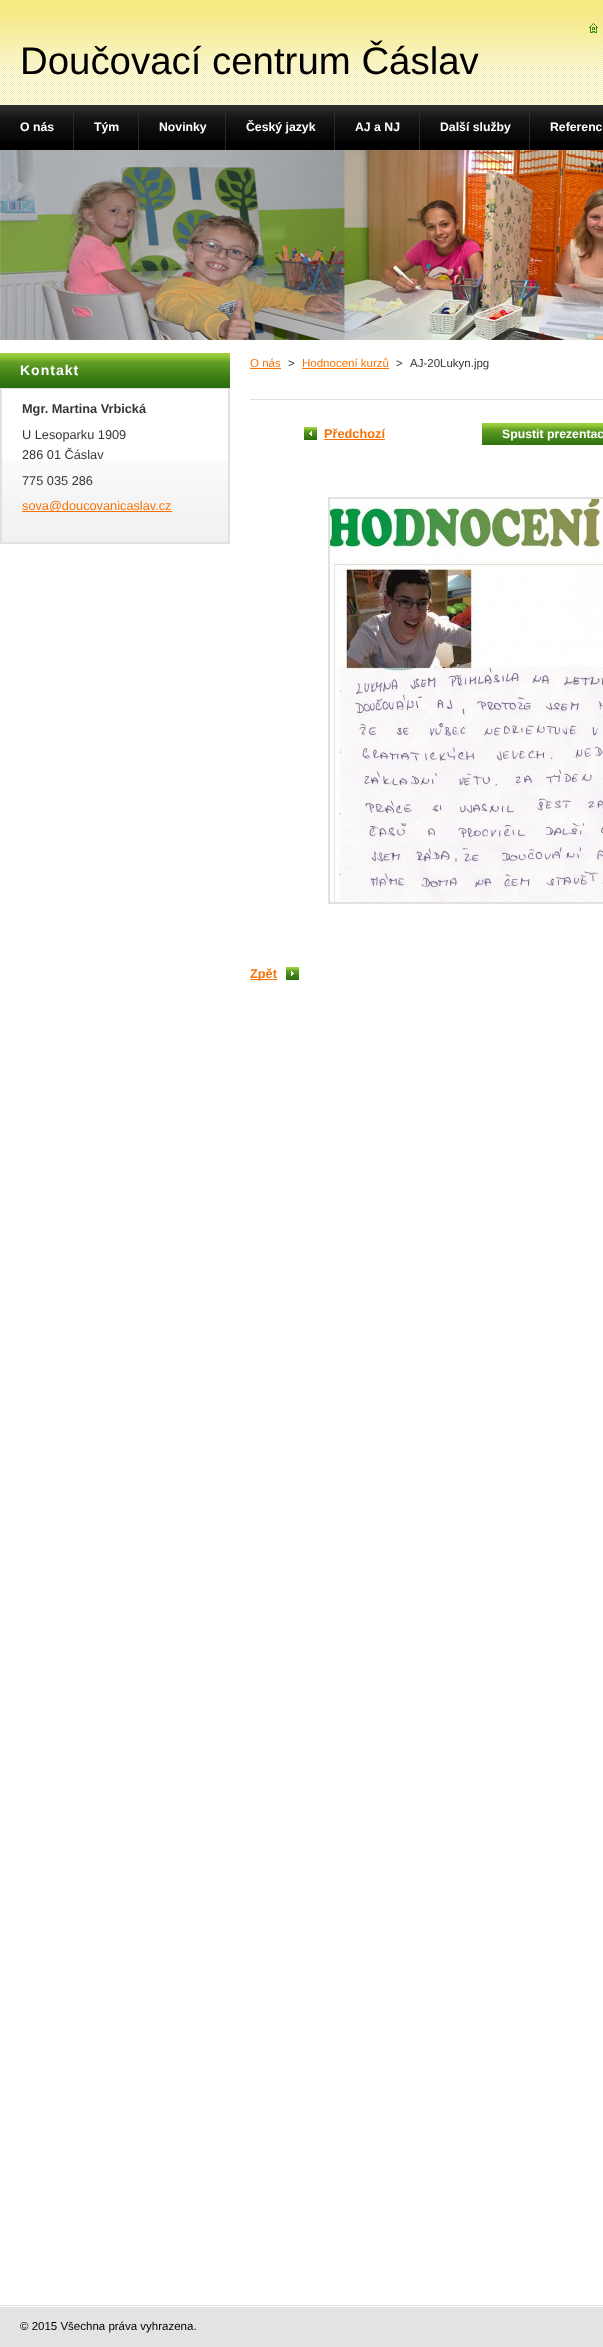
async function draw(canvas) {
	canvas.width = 603;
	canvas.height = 2347;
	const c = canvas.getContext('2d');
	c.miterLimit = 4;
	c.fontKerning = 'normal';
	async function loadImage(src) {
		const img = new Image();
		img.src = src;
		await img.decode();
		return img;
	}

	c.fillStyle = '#fff';
	c.fillRect(0, 0, 603, 2347);
	c.drawImage(await loadImage('img1.png'), 0, 0, 603, 340);
	c.drawImage(await loadImage('img2.png'), 589, 23, 9, 10);
	c.font = '38.4px Liberation Sans';
	c.fillStyle = '#000';
	c.fillText('Doučovací centrum Čáslav', 20, 74);
	c.fillRect(0, 141, 603, 9);
	c.drawImage(await loadImage('img3.png'), 0, 105, 603, 36);
	c.fillStyle = '#2a2a2a';
	c.fillRect(73, 110, 1, 40);
	c.font = 'bold 12.25px Liberation Sans';
	c.fillStyle = '#fff';
	c.fillText('O nás', 20, 131);
	c.fillStyle = '#2a2a2a';
	c.fillRect(138, 110, 1, 40);
	c.fillStyle = '#fff';
	c.fillText('Tým', 94, 131);
	c.fillStyle = '#2a2a2a';
	c.fillRect(225, 110, 1, 40);
	c.fillStyle = '#fff';
	c.fillText('Novinky', 159, 131);
	c.fillStyle = '#2a2a2a';
	c.fillRect(334, 110, 1, 40);
	c.fillStyle = '#fff';
	c.fillText('Český jazyk', 246, 131);
	c.fillStyle = '#2a2a2a';
	c.fillRect(419, 110, 1, 40);
	c.fillStyle = '#fff';
	c.fillText('AJ a NJ', 355, 131);
	c.fillStyle = '#2a2a2a';
	c.fillRect(529, 110, 1, 40);
	c.fillStyle = '#fff';
	c.fillText('Další služby', 440, 131);
	c.fillText('Referenc', 550, 131);
	c.drawImage(await loadImage('img4.png'), 0, 150, 603, 190);
	c.drawImage(await loadImage('img5.png'), 2, 460, 226, 82);
	c.drawImage(await loadImage('img6.png'), 0, 353, 230, 35);
	c.fillStyle = '#e1e1e1';
	c.fillRect(0, 388, 230, 1);
	c.letterSpacing = '1px';
	c.font = 'bold 14px Liberation Sans';
	c.fillStyle = '#fff';
	c.fillText('Kontakt', 20, 375);
	for (const [x, y, w, h, color] of [
		[228, 389, 2, 155, '#e1e1e1'],
		[0, 542, 230, 2, '#e1e1e1'],
		[0, 389, 2, 155, '#e1e1e1'],
	]) {
		c.fillStyle = color;
		c.fillRect(x, y, w, h);
	}
	c.letterSpacing = '0px';
	c.font = 'bold 12.75px Liberation Sans';
	c.fillStyle = '#363636';
	c.fillText('Mgr. Martina Vrbická', 22, 413);
	c.font = '12.75px Liberation Sans';
	for (const [text, x, y] of [
		['U Lesoparku 1909', 22, 439],
		['286 01 Čáslav', 22, 459],
		['775 035 286', 22, 485],
	]) {
		c.fillText(text, x, y);
	}
	c.fillStyle = '#f87307';
	c.fillRect(22, 511, 150, 1);
	c.fillText('sova@doucovanicaslav.cz', 22, 510);
	c.font = '11.5px Liberation Sans';
	c.fillText('O nás', 250, 367);
	c.fillRect(250, 368, 31, 1);
	c.fillStyle = '#363636';
	c.fillText('>', 288, 367);
	c.fillStyle = '#f87307';
	c.fillText('Hodnocení kurzů', 302, 367);
	c.fillRect(302, 368, 87, 1);
	c.fillStyle = '#363636';
	c.fillText('>', 396, 367);
	c.fillText('AJ-20Lukyn.jpg', 410, 367);
	c.fillStyle = '#e1e1e1';
	c.fillRect(250, 399, 353, 1);
	c.drawImage(await loadImage('img7.png'), 304, 427, 13, 13);
	c.font = 'bold 12.75px Liberation Sans';
	c.fillStyle = '#f87307';
	c.fillText('Předchozí', 324, 438);
	c.fillRect(324, 439, 61, 1);
	c.drawImage(await loadImage('img8.png'), 482, 423, 121, 22);
	c.font = 'bold 12.25px Liberation Sans';
	c.fillStyle = '#fff';
	c.fillText('Spustit prezentac', 502, 438);
	c.strokeStyle = '#e1e1e1';
	c.lineWidth = 2;
	c.strokeRect(329, 498, 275, 405);
	c.drawImage(await loadImage('img9.png'), 330, 499, 273, 403);
	c.drawImage(await loadImage('img10.png'), 286, 967, 13, 13);
	c.fillStyle = '#f87307';
	c.fillRect(250, 979, 27, 1);
	c.font = 'bold 12.75px Liberation Sans';
	c.fillText('Zpět', 250, 978);
	c.fillStyle = '#e3e3e3';
	c.fillRect(0, 2305, 603, 42);
	c.fillStyle = '#fff';
	c.fillRect(0, 2306, 603, 1);
	c.font = '11.5px Liberation Sans';
	c.fillStyle = '#000';
	c.fillText('© 2015 Všechna práva vyhrazena.', 20, 2330);
}

draw(document.querySelector('canvas'));
